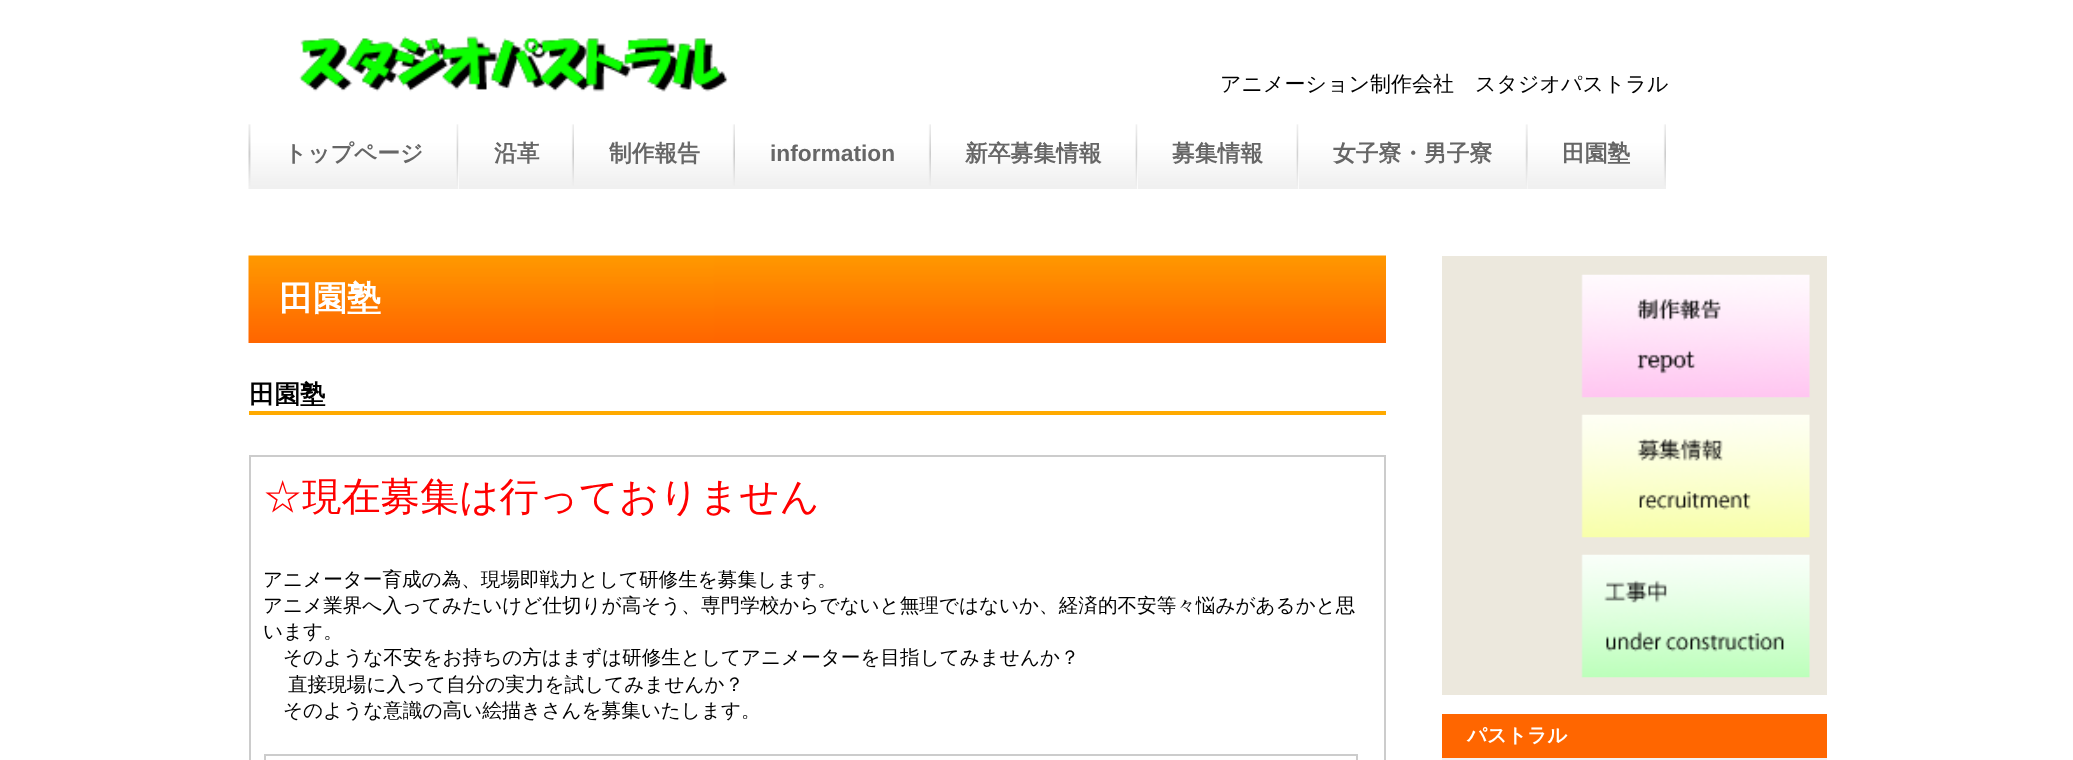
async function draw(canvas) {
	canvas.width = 2073;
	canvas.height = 760;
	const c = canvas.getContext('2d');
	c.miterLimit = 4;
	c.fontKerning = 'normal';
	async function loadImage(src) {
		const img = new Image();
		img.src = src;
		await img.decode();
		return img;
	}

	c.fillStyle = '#fff';
	c.fillRect(0, 0, 2073, 760);
	c.drawImage(await loadImage('img1.png'), 299, 36, 429, 56);
	c.font = '500 21px WenQuanYi Zen Hei';
	c.fillStyle = '#000';
	c.fillText('アニメーション制作会社　スタジオパストラル', 1220, 91);
	c.drawImage(await loadImage('img2.png'), 248, 124, 3, 65);
	c.drawImage(await loadImage('img3.png'), 250, 124, 209, 65);
	c.font = 'bold 22.75px WenQuanYi Zen Hei';
	c.fillStyle = '#666';
	c.fillText('トップページ', 284, 161);
	c.drawImage(await loadImage('img4.png'), 459, 124, 115, 65);
	c.fillText('沿革', 494, 161);
	c.drawImage(await loadImage('img5.png'), 574, 124, 161, 65);
	c.fillText('制作報告', 609, 161);
	c.drawImage(await loadImage('img6.png'), 735, 124, 196, 65);
	c.font = 'bold 22.75px Liberation Sans';
	c.fillText('information', 770, 161);
	c.drawImage(await loadImage('img7.png'), 931, 124, 207, 65);
	c.font = 'bold 22.75px WenQuanYi Zen Hei';
	c.fillText('新卒募集情報', 965, 161);
	c.drawImage(await loadImage('img8.png'), 1138, 124, 161, 65);
	c.fillText('募集情報', 1172, 161);
	c.drawImage(await loadImage('img9.png'), 1299, 124, 229, 65);
	c.fillText('女子寮・男子寮', 1333, 161);
	c.drawImage(await loadImage('img10.png'), 1528, 124, 138, 65);
	c.fillText('田園塾', 1562, 161);
	c.drawImage(await loadImage('img11.png'), 248, 255, 1138, 88);
	c.font = 'bold 34px WenQuanYi Zen Hei';
	c.fillStyle = '#fff';
	c.fillText('田園塾', 279, 310);
	c.fillStyle = '#fa0';
	c.fillRect(249, 411, 1137, 4);
	c.font = 'bold 25.5px WenQuanYi Zen Hei';
	c.fillStyle = '#000';
	c.fillText('田園塾', 249, 403);
	for (const [x, y, w, h, color] of [
		[249, 455, 1137, 2, '#ccc'],
		[249, 455, 2, 305, '#ccc'],
		[1384, 455, 2, 305, '#ccc'],
	]) {
		c.fillStyle = color;
		c.fillRect(x, y, w, h);
	}
	c.font = '500 39.25px WenQuanYi Zen Hei';
	c.fillStyle = '#f00';
	c.fillText('☆現在募集は行っておりません', 263, 510);
	c.font = '500 19.6px WenQuanYi Zen Hei';
	c.fillStyle = '#000';
	for (const [text, x, y] of [
		['アニメーター育成の為、現場即戦力として研修生を募集します。', 263, 586],
		['アニメ業界へ入ってみたいけど仕切りが高そう、専門学校からでないと無理ではないか、経済的不安等々悩みがあるかと思', 263, 612],
		['います。', 263, 638],
		['そのような不安をお持ちの方はまずは研修生としてアニメーターを目指してみませんか？', 283, 664],
		['直接現場に入って自分の実力を試してみませんか？', 288, 691],
		['そのような意識の高い絵描きさんを募集いたします。', 283, 717],
	]) {
		c.fillText(text, x, y);
	}
	for (const [x, y, w, h, color] of [
		[264, 754, 2, 6, '#ccc'],
		[264, 754, 1094, 2, '#ccc'],
		[1356, 754, 2, 6, '#ccc'],
		[1442, 256, 385, 439, '#ece8dd'],
	]) {
		c.fillStyle = color;
		c.fillRect(x, y, w, h);
	}
	c.drawImage(await loadImage('img12.png'), 1581, 274, 229, 124);
	c.drawImage(await loadImage('img13.png'), 1581, 414, 229, 124);
	c.drawImage(await loadImage('img14.png'), 1581, 554, 229, 124);
	c.fillStyle = '#f3f3f3';
	c.fillRect(1442, 758, 385, 2);
	c.fillStyle = '#f60';
	c.fillRect(1442, 714, 385, 44);
	c.font = 'bold 19.6px WenQuanYi Zen Hei';
	c.fillStyle = '#fff';
	c.fillText('パストラル', 1467, 742);
}

draw(document.querySelector('canvas'));
